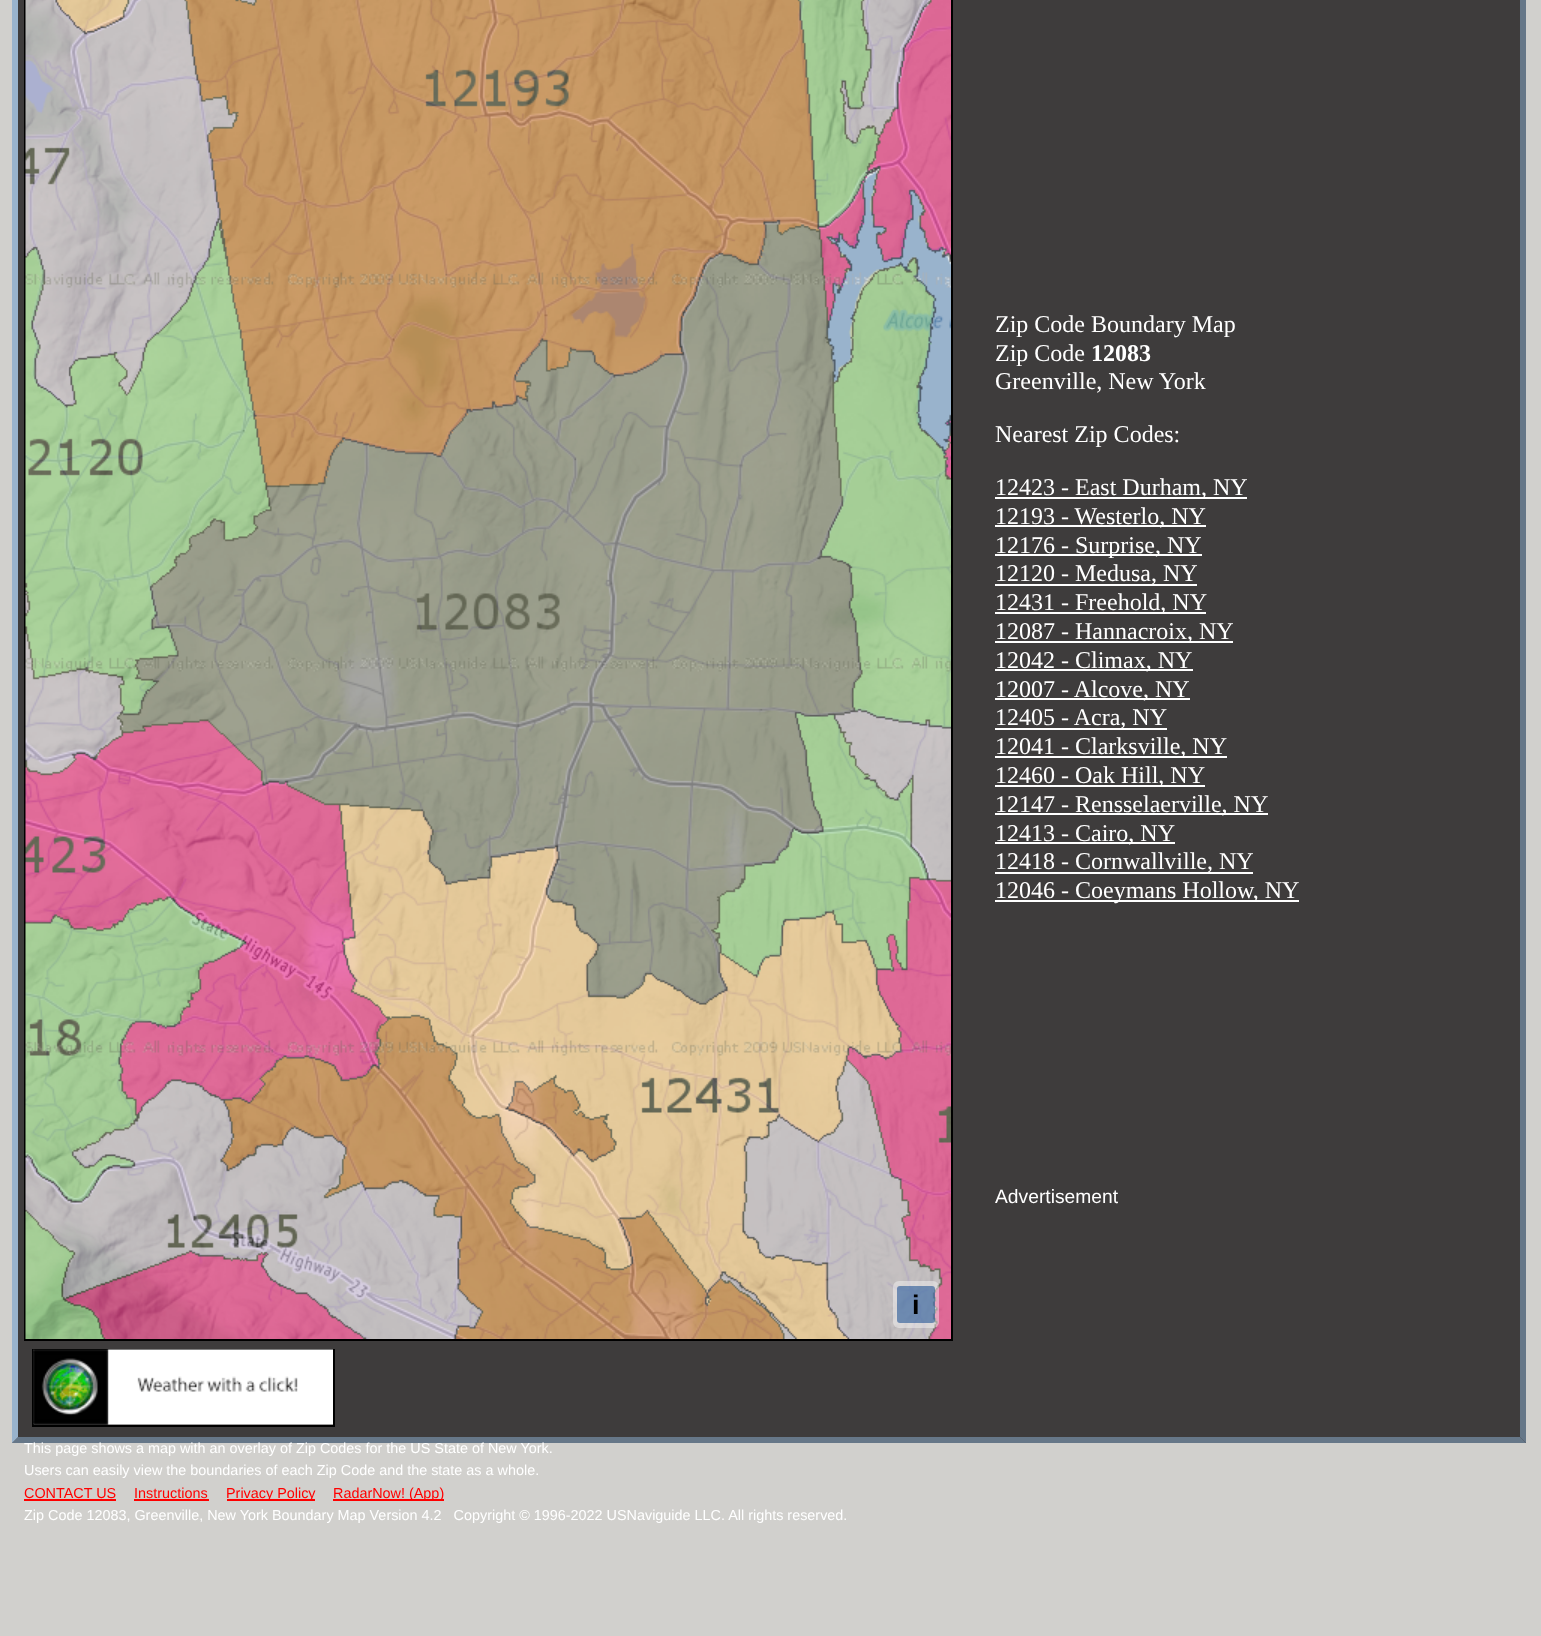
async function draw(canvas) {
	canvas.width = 1541;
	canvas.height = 1636;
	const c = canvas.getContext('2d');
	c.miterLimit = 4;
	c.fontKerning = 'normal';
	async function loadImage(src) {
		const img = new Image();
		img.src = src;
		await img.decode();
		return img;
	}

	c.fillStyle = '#d1d0cd';
	c.fillRect(0, 0, 1541, 1636);
	c.fillStyle = '#3e3c3c';
	c.fillRect(12, 0, 1514, 1443);
	c.fillStyle = '#678';
	c.beginPath();
	c.moveTo(1526, -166);
	c.lineTo(1526, 1443);
	c.lineTo(1520, 1437);
	c.lineTo(1520, -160);
	c.closePath();
	c.fill();
	c.beginPath();
	c.moveTo(1526, 1443);
	c.lineTo(12, 1443);
	c.lineTo(18, 1437);
	c.lineTo(1520, 1437);
	c.closePath();
	c.fill();
	c.fillStyle = '#99b3cc';
	c.beginPath();
	c.moveTo(12, 1443);
	c.lineTo(12, -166);
	c.lineTo(18, -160);
	c.lineTo(18, 1437);
	c.closePath();
	c.fill();
	c.font = '24px Liberation Serif';
	c.fillStyle = '#fff';
	c.fillText('Zip Code Boundary Map', 995, 332);
	c.fillText('Zip Code', 995, 361);
	c.font = 'bold 24px Liberation Serif';
	c.fillText('12083', 1091, 361);
	c.font = '24px Liberation Serif';
	c.fillText('Greenville, New York', 995, 389);
	c.fillText('Nearest Zip Codes:', 995, 442);
	c.fillRect(995, 497, 252, 2);
	c.fillText('12423 - East Durham, NY', 995, 495);
	c.fillRect(995, 525, 211, 2);
	c.fillText('12193 - Westerlo, NY', 995, 524);
	c.fillRect(995, 554, 207, 2);
	c.fillText('12176 - Surprise, NY', 995, 553);
	c.fillRect(995, 584, 202, 2);
	c.fillText('12120 - Medusa, NY', 995, 581);
	c.fillRect(995, 612, 211, 2);
	c.fillText('12431 - Freehold, NY', 995, 610);
	c.fillRect(995, 641, 238, 2);
	c.fillText('12087 - Hannacroix, NY', 995, 639);
	c.fillRect(995, 669, 198, 2);
	c.fillText('12042 - Climax, NY', 995, 668);
	c.fillRect(995, 698, 195, 2);
	c.fillText('12007 - Alcove, NY', 995, 697);
	c.fillRect(995, 728, 172, 2);
	c.fillText('12405 - Acra, NY', 995, 725);
	c.fillRect(995, 756, 232, 2);
	c.fillText('12041 - Clarksville, NY', 995, 754);
	c.fillRect(995, 785, 210, 2);
	c.fillText('12460 - Oak Hill, NY', 995, 783);
	c.fillRect(995, 813, 273, 2);
	c.fillText('12147 - Rensselaerville, NY', 995, 812);
	c.fillRect(995, 842, 180, 2);
	c.fillText('12413 - Cairo, NY', 995, 841);
	c.fillRect(995, 872, 258, 2);
	c.fillText('12418 - Cornwallville, NY', 995, 869);
	c.fillRect(995, 900, 304, 2);
	c.fillText('12046 - Coeymans Hollow, NY', 995, 898);
	c.font = '19.25px Liberation Sans';
	c.fillText('Advertisement', 995, 1203);
	c.strokeStyle = '#000';
	c.lineWidth = 2;
	c.strokeRect(25, -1, 927, 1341);
	c.drawImage(await loadImage('img1.png'), 25, 0, 926, 1339);
	c.fillStyle = '#ffffff66';
	c.beginPath();
	c.roundRect(893, 1281, 46, 47, 6);
	c.fill();
	c.fillStyle = '#003c8880';
	c.beginPath();
	c.roundRect(897, 1286, 38, 37, 3);
	c.fill();
	c.font = 'bold 27px Liberation Sans';
	c.fillStyle = '#000';
	c.fillText('i', 912, 1314);
	c.strokeRect(33, 1350, 301, 76);
	c.drawImage(await loadImage('img2.png'), 33, 1349, 300, 76);
	c.font = '14.4px Liberation Sans';
	c.fillStyle = '#fff';
	c.fillText('This page shows a map with an overlay of Zip Codes for the US State of New York.', 24, 1453);
	c.fillText('Users can easily view the boundaries of each Zip Code and the state as a whole.', 24, 1475);
	c.fillStyle = '#f00';
	c.fillText('CONTACT US', 24, 1498);
	c.fillRect(24, 1499, 92, 2);
	c.fillText('Instructions', 134, 1498);
	c.fillRect(134, 1499, 75, 2);
	c.fillRect(227, 1499, 88, 2);
	c.fillText('Privacy Policy', 226, 1498);
	c.fillRect(333, 1499, 111, 2);
	c.fillText('RadarNow! (App)', 333, 1498);
	c.fillStyle = '#fff';
	c.fillText('Zip Code 12083, Greenville, New York Boundary Map Version 4.2   Copyright © 1996-2022 USNaviguide LLC. All rights reserved.', 24, 1520);
}

draw(document.querySelector('canvas'));
